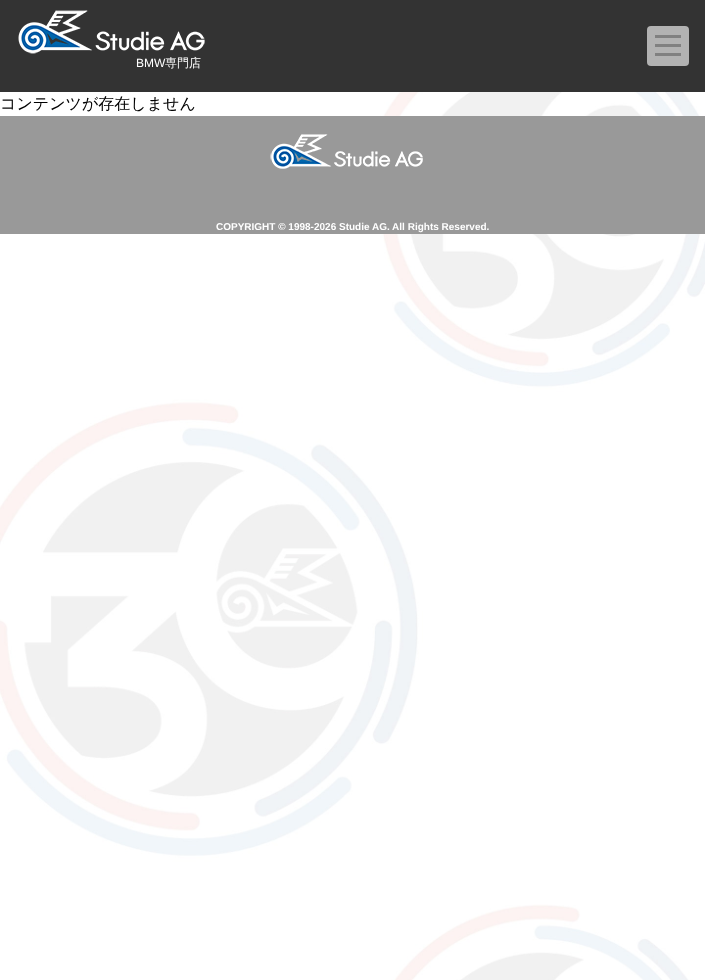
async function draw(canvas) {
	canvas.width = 705;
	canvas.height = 980;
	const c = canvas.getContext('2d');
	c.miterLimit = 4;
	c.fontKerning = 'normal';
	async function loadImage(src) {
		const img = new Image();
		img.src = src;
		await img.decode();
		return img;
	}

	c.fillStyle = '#fff';
	c.fillRect(0, 0, 705, 980);
	c.drawImage(await loadImage('img1.png'), 0, 92, 705, 888);
	c.fillStyle = '#333';
	c.fillRect(0, 0, 705, 92);
	c.drawImage(await loadImage('img2.png'), 18, 10, 187, 44);
	c.font = '12px Liberation Sans';
	c.fillStyle = '#fff';
	c.fillText('BMW', 136, 67);
	c.font = '500 12px WenQuanYi Zen Hei';
	c.fillText('専門店', 165, 67);
	c.fillStyle = '#b2b2b2';
	c.beginPath();
	c.roundRect(647, 26, 42, 40, 4);
	c.fill();
	for (const [x, y, w, h, color] of [
		[655, 35, 26, 3, '#808080'],
		[655, 44, 26, 3, '#808080'],
		[655, 53, 26, 3, '#808080'],
	]) {
		c.fillStyle = color;
		c.fillRect(x, y, w, h);
	}
	c.font = '500 16px WenQuanYi Zen Hei';
	c.fillStyle = '#000';
	c.fillText('コンテンツが存在しません', 0, 109);
	c.fillStyle = '#999';
	c.fillRect(0, 116, 705, 118);
	c.drawImage(await loadImage('img3.png'), 270, 134, 153, 35);
	c.font = 'bold 10px Liberation Sans';
	c.fillStyle = '#fff';
	c.fillText('COPYRIGHT © 1998-2026 Studie AG. All Rights Reserved.', 216, 230);
}

draw(document.querySelector('canvas'));
